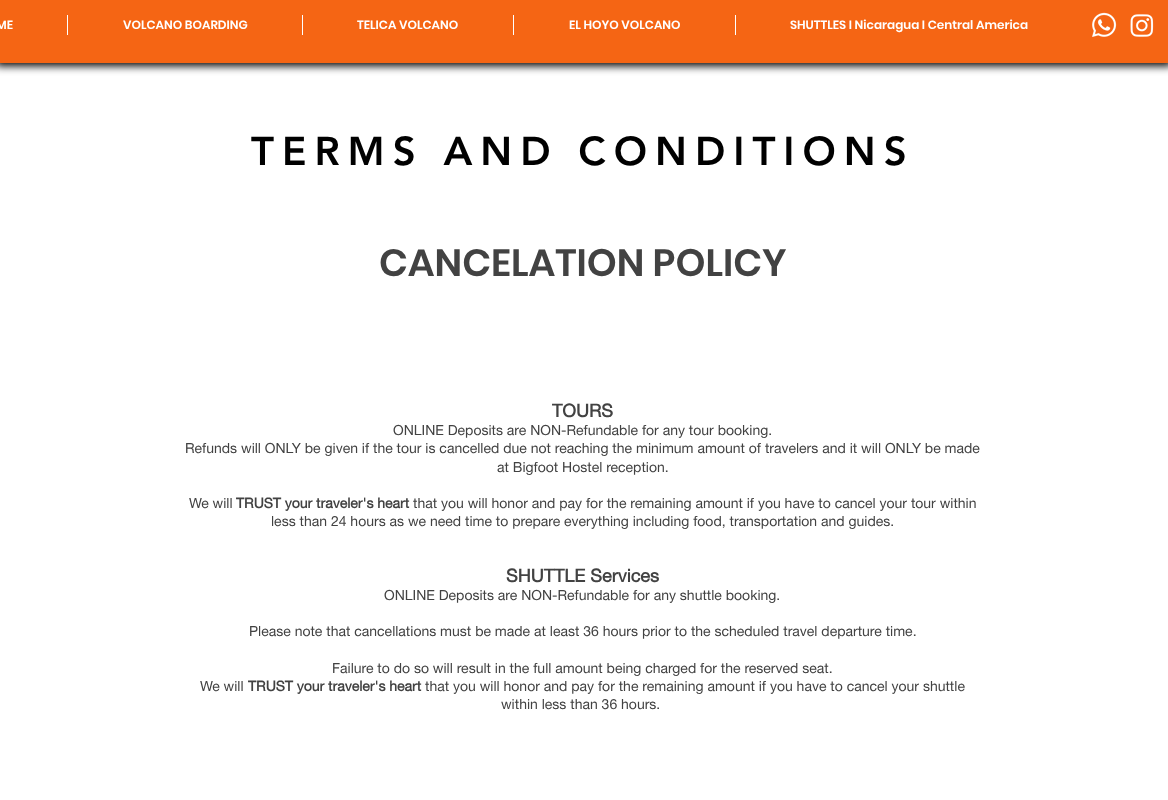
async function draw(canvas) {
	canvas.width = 1168;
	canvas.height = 800;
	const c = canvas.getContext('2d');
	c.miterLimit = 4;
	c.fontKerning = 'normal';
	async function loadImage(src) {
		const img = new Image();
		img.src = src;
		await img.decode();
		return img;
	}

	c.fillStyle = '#fff';
	c.fillRect(0, 0, 1168, 800);
	c.fillStyle = '#000';
	c.filter = 'blur(4px)';
	c.beginPath();
	c.rect(-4, -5, 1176, 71);
	c.fill();
	c.filter = 'none';
	c.fillStyle = '#f56514';
	c.fillRect(0, 0, 1168, 63);
	c.font = '600 12px Poppins';
	c.fillStyle = '#fff';
	c.fillText('ME', -4, 29);
	c.fillRect(67, 15, 1, 20);
	c.fillText('VOLCANO BOARDING', 123, 29);
	c.fillRect(302, 15, 1, 20);
	c.fillText('TELICA VOLCANO', 357, 29);
	c.fillRect(513, 15, 1, 20);
	c.fillText('EL HOYO VOLCANO', 569, 29);
	c.fillRect(735, 15, 1, 20);
	c.fillText('SHUTTLES I Nicaragua I Central America', 790, 29);
	c.drawImage(await loadImage('img1.png'), 1092, 12, 25, 25);
	c.drawImage(await loadImage('img2.png'), 1130, 14, 24, 23);
	c.letterSpacing = '8px';
	c.font = '900 40px "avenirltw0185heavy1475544"';
	c.fillStyle = '#000';
	c.fillText('TERMS AND CONDITIONS', 251, 165);
	c.letterSpacing = '0px';
	c.font = '600 38px Poppins';
	c.fillStyle = '#424242';
	c.fillText('CANCELATION POLICY', 379, 276);
	c.font = 'bold 18px helvetica neue';
	c.fillText('TOURS', 552, 417);
	c.font = '14px helvetica neue';
	for (const [text, x, y] of [
		['ONLINE Deposits are NON-Refundable for any tour booking.', 393, 435],
		['Refunds will ONLY be given if the tour is cancelled due not reaching the minimum amount of travelers and it will ONLY be made', 185, 453],
		['at Bigfoot Hostel reception.', 497, 472],
		['We will', 189, 508],
	]) {
		c.fillText(text, x, y);
	}
	c.font = 'bold 14px helvetica neue';
	c.fillText('TRUST your traveler\'s heart', 236, 508);
	c.font = '14px helvetica neue';
	c.fillText('that you will honor and pay for the remaining amount if you have to cancel your tour within', 413, 508);
	c.fillText('less than 24 hours as we need time to prepare everything including food, transportation and guides.', 271, 526);
	c.font = 'bold 18px helvetica neue';
	c.fillText('SHUTTLE Services', 506, 582);
	c.font = '14px helvetica neue';
	for (const [text, x, y] of [
		['ONLINE Deposits are NON-Refundable for any shuttle booking.', 384, 600],
		['Please note that cancellations must be made at least 36 hours prior to the scheduled travel departure time.', 249, 636],
		['Failure to do so will result in the full amount being charged for the reserved seat.', 332, 673],
		['We will', 200, 691],
	]) {
		c.fillText(text, x, y);
	}
	c.font = 'bold 14px helvetica neue';
	c.fillText('TRUST your traveler\'s heart', 248, 691);
	c.font = '14px helvetica neue';
	c.fillText('that you will honor and pay for the remaining amount if you have to cancel your shuttle', 425, 691);
	c.fillText('within less than 36 hours.', 501, 709);
}

draw(document.querySelector('canvas'));
